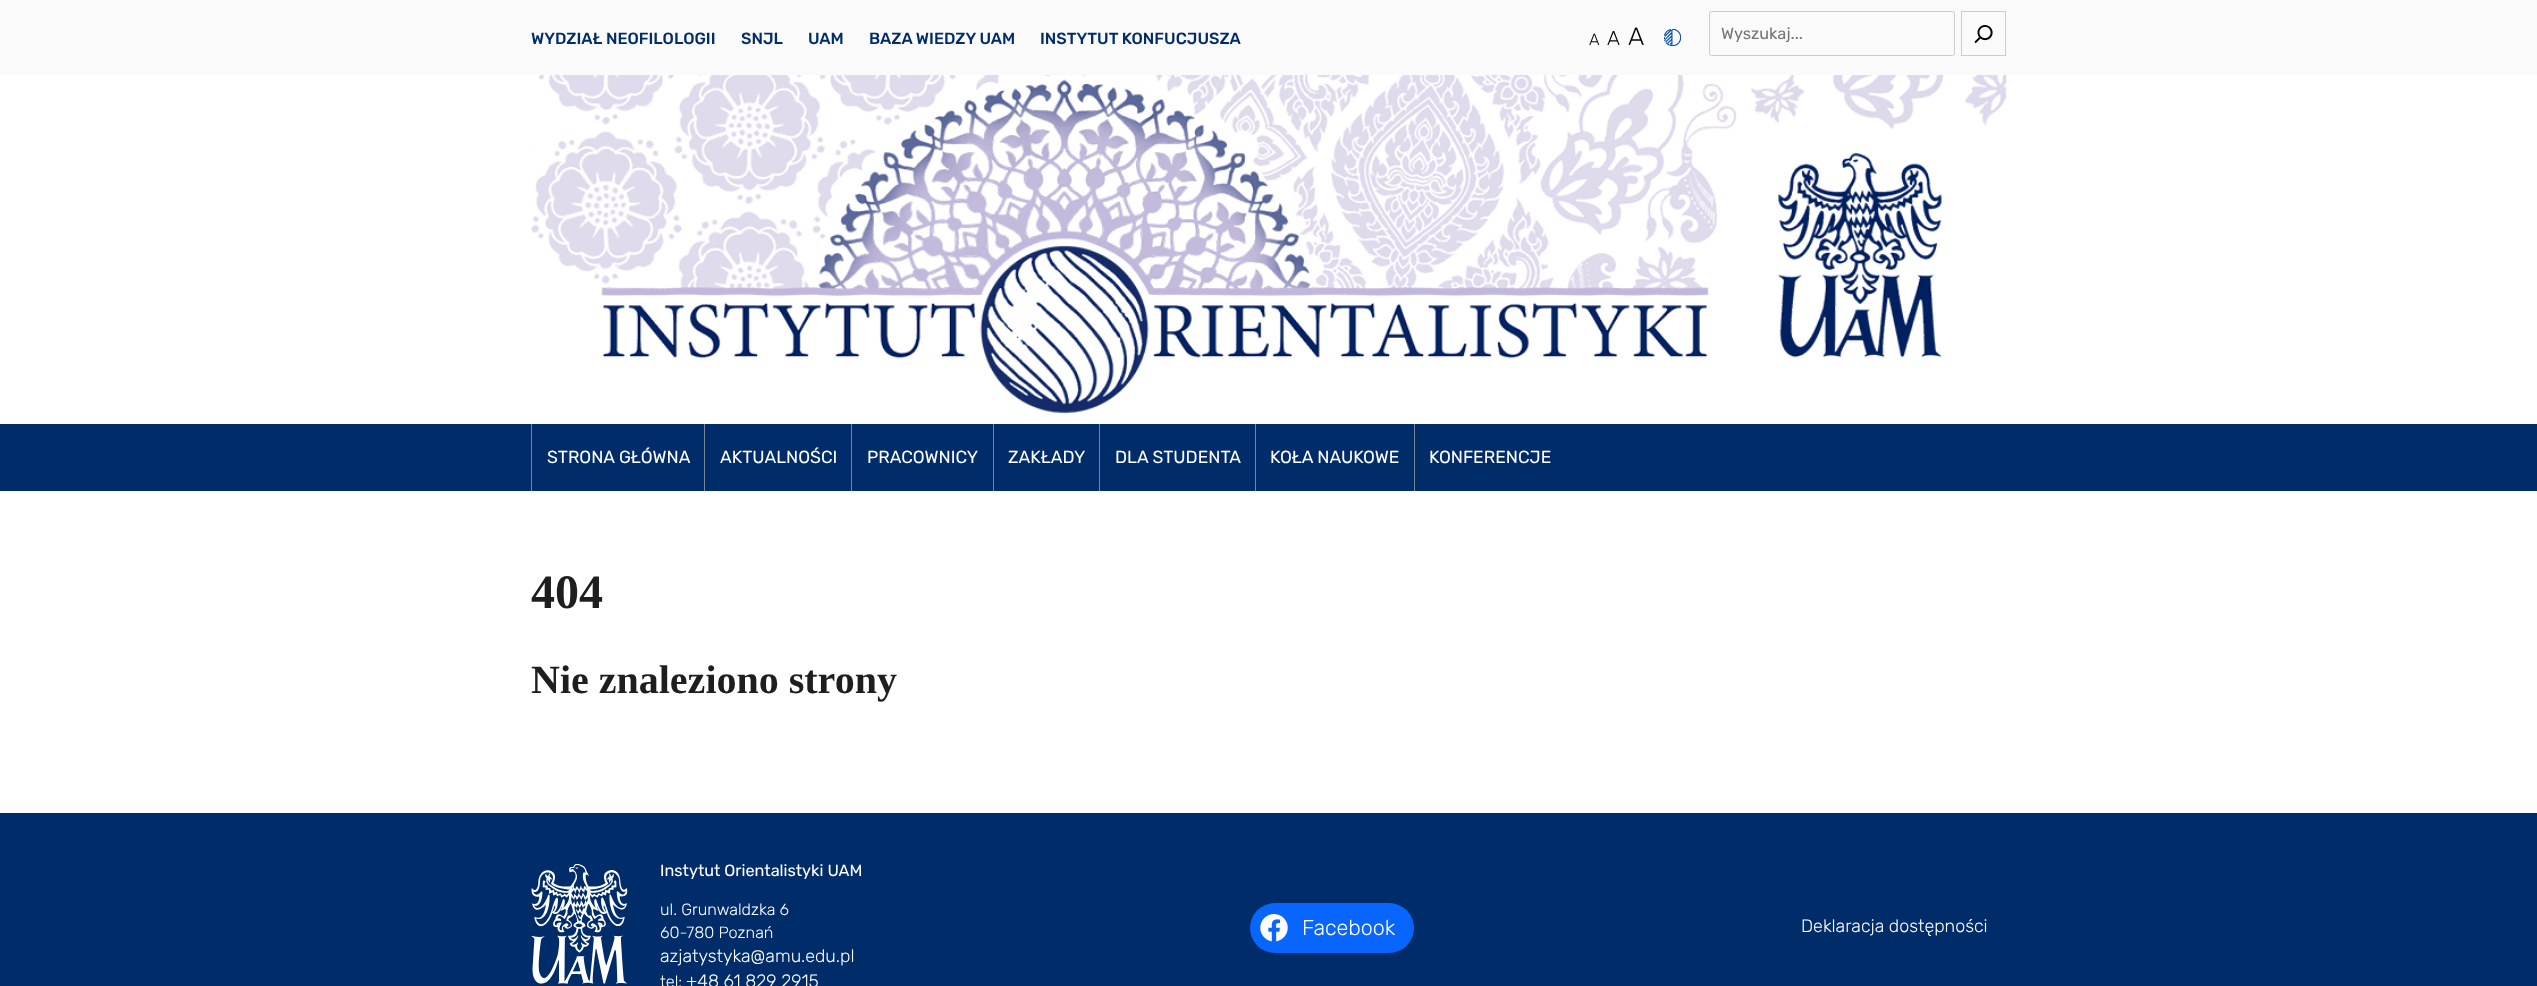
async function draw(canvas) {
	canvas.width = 2537;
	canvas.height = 986;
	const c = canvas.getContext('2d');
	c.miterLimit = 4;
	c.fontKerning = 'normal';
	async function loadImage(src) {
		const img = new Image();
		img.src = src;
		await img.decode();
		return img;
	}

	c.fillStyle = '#fff';
	c.fillRect(0, 0, 2537, 986);
	c.fillStyle = '#fafafa';
	c.fillRect(0, 0, 2537, 75);
	c.font = '500 16.25px Rubik';
	c.fillStyle = '#002d69';
	for (const [text, x, y] of [
		['WYDZIAŁ NEOFILOLOGII', 531, 44],
		['SNJL', 741, 44],
		['UAM', 808, 44],
		['BAZA WIEDZY UAM', 869, 44],
		['INSTYTUT KONFUCJUSZA', 1040, 44],
	]) {
		c.fillText(text, x, y);
	}
	c.font = '300 16.25px Rubik';
	c.fillStyle = '#000';
	c.fillText('A', 1589, 45);
	c.font = '300 20px Rubik';
	c.fillText('A', 1607, 45);
	c.font = '300 25px Rubik';
	c.fillText('A', 1628, 45);
	c.drawImage(await loadImage('img1.png'), 1664, 29, 17, 17);
	c.beginPath();
	c.roundRect(1709.5, 11.5, 245, 44, 2);
	c.strokeStyle = '#ccc';
	c.stroke();
	c.font = '16.25px Rubik';
	c.fillStyle = '#757575';
	c.fillText('Wyszukaj...', 1721, 39);
	c.strokeRect(1961.5, 11.5, 44, 44);
	c.drawImage(await loadImage('img2.png'), 1974, 25, 19, 19);
	c.drawImage(await loadImage('img3.png'), 531, 75, 1476, 339);
	c.fillStyle = '#002d69';
	c.fillRect(0, 424, 2537, 67);
	c.fillStyle = '#788497';
	c.fillRect(531, 424, 1, 67);
	c.font = '17.5px Rubik';
	c.fillStyle = '#fff';
	c.fillText('STRONA GŁÓWNA', 547, 463);
	c.fillStyle = '#788497';
	c.fillRect(704, 424, 1, 67);
	c.fillStyle = '#fff';
	c.fillText('AKTUALNOŚCI', 720, 463);
	c.fillStyle = '#788497';
	c.fillRect(851, 424, 1, 67);
	c.fillStyle = '#fff';
	c.fillText('PRACOWNICY', 867, 463);
	c.fillStyle = '#788497';
	c.fillRect(993, 424, 1, 67);
	c.fillStyle = '#fff';
	c.fillText('ZAKŁADY', 1008, 463);
	c.fillStyle = '#788497';
	c.fillRect(1099, 424, 1, 67);
	c.fillStyle = '#fff';
	c.fillText('DLA STUDENTA', 1115, 463);
	c.fillStyle = '#788497';
	c.fillRect(1255, 424, 1, 67);
	c.fillStyle = '#fff';
	c.fillText('KOŁA NAUKOWE', 1270, 463);
	c.fillStyle = '#788497';
	c.fillRect(1414, 424, 1, 67);
	c.fillStyle = '#fff';
	c.fillText('KONFERENCJE', 1429, 463);
	c.font = 'bold 48px Tinos';
	c.fillStyle = '#1e1e1e';
	c.fillText('404', 531, 608);
	c.font = 'bold 40px Tinos';
	c.fillText('Nie znaleziono strony', 531, 693);
	c.fillStyle = '#002d69';
	c.fillRect(0, 813, 2537, 173);
	c.drawImage(await loadImage('img4.png'), 531, 864, 97, 120);
	c.font = '16.25px Rubik';
	c.fillStyle = '#fff';
	c.fillText('Instytut Orientalistyki UAM', 660, 876);
	c.font = '300 16.25px Rubik';
	c.fillText('ul. Grunwaldzka 6', 660, 915);
	c.fillText('60-780 Poznań', 660, 938);
	c.font = '300 17.9px Rubik';
	c.fillText('azjatystyka@amu.edu.pl', 660, 962);
	c.font = '300 16.25px Rubik';
	c.fillText('tel:', 660, 987);
	c.font = '300 17.9px Rubik';
	c.fillText('+48 61 829 2915', 686, 987);
	c.fillStyle = '#0866ff';
	c.beginPath();
	c.roundRect(1250, 903, 164, 50, 25);
	c.fill();
	c.drawImage(await loadImage('img5.png'), 1260, 914, 28, 28);
	c.font = '300 21.5px Rubik';
	c.fillStyle = '#fff';
	c.fillText('Facebook', 1302, 935);
	c.font = '300 17.9px Rubik';
	c.fillText('Deklaracja dostępności', 1801, 932);
}

draw(document.querySelector('canvas'));
